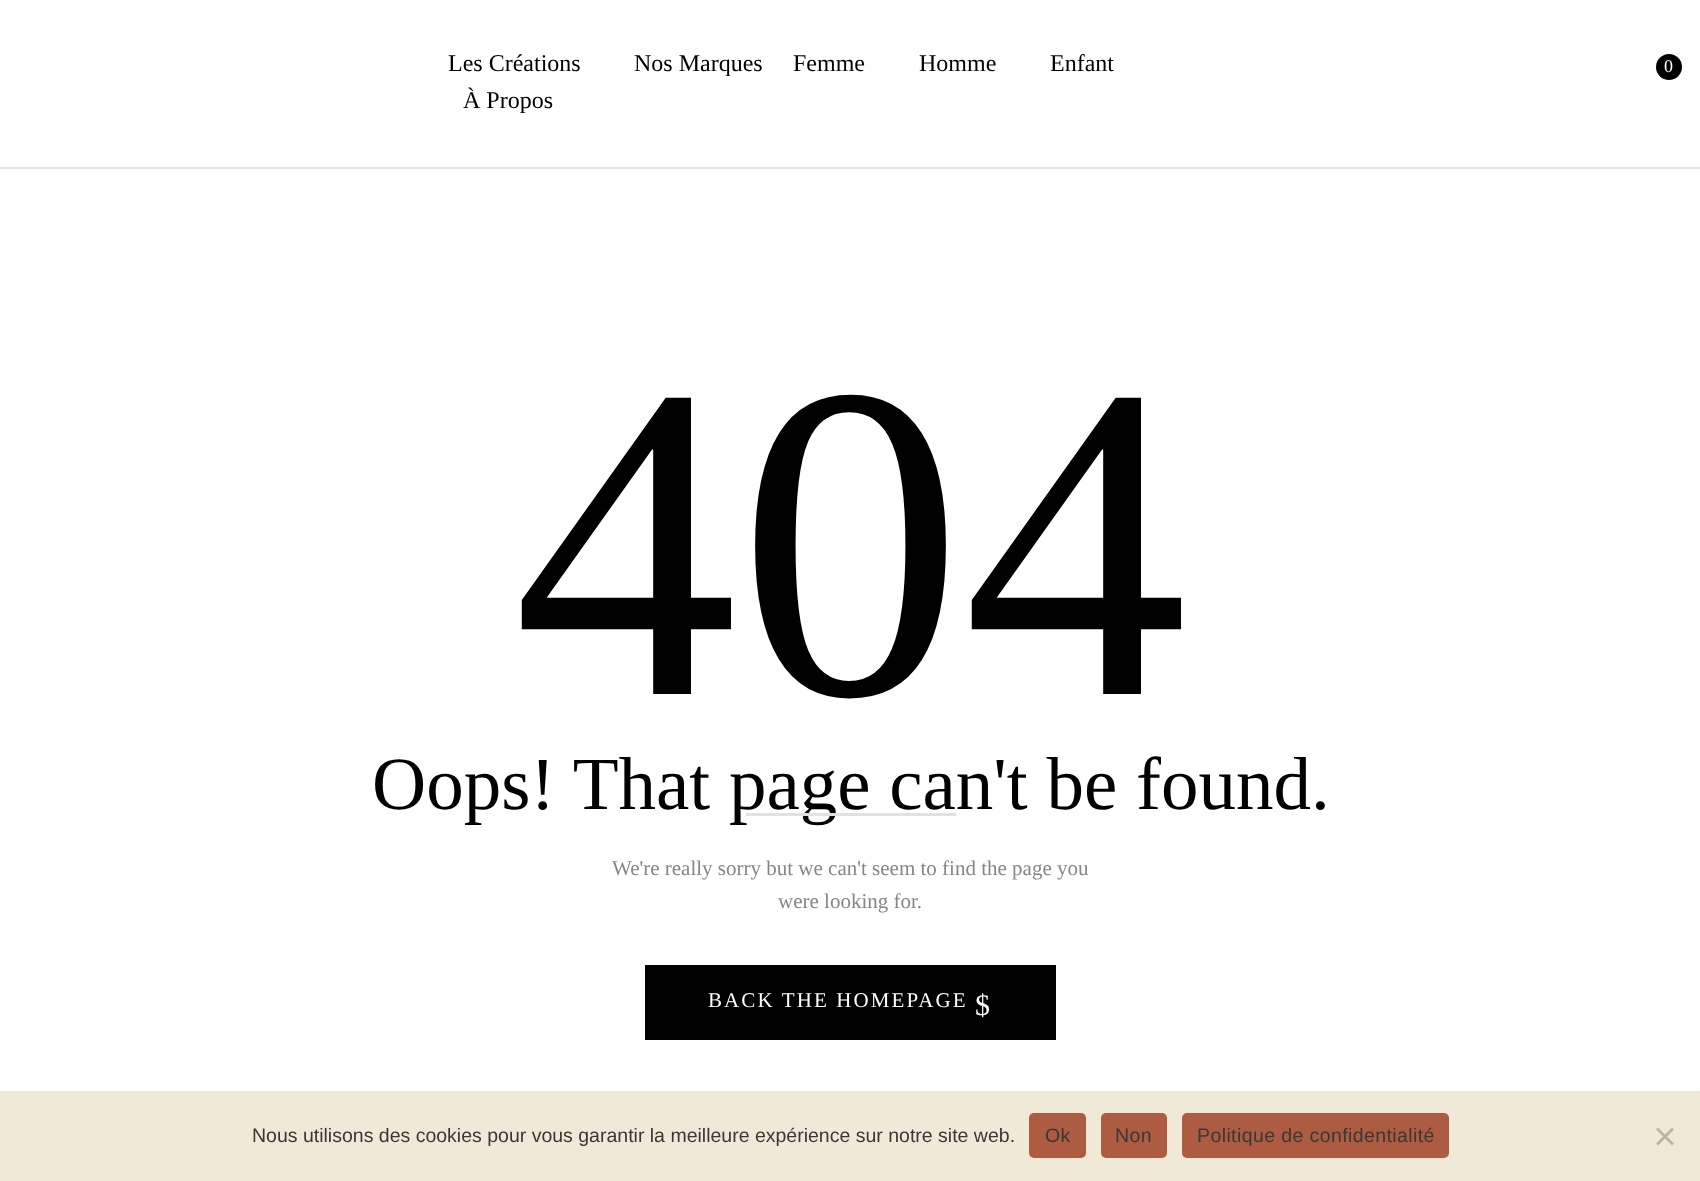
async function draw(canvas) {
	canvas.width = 1700;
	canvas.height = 1181;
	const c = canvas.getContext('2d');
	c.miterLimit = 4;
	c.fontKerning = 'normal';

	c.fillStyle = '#fff';
	c.fillRect(0, 0, 1700, 1181);
	c.fillStyle = '#e5e5e5';
	c.fillRect(0, 167, 1700, 2);
	c.font = '24px Liberation Serif';
	c.fillStyle = '#000';
	for (const [text, x, y] of [
		['Les Créations', 448, 71],
		['Nos Marques', 634, 71],
		['Femme', 793, 71],
		['Homme', 919, 71],
		['Enfant', 1050, 71],
		['À Propos', 463, 108],
	]) {
		c.fillText(text, x, y);
	}
	c.beginPath();
	c.arc(1669, 67, 13, 0, 2 * Math.PI);
	c.fill();
	c.font = '18px Liberation Serif';
	c.fillStyle = '#fff';
	c.fillText('0', 1664, 72);
	c.font = '450px Liberation Serif';
	c.fillStyle = '#000';
	c.fillText('404', 513, 694);
	c.font = '75px Liberation Serif';
	c.fillText('Oops! That page can\'t be found.', 372, 809);
	c.fillStyle = '#e1e1e1';
	c.fillRect(746, 813, 210, 3);
	c.font = '21px Liberation Serif';
	c.fillStyle = '#868686';
	c.fillText('We\'re really sorry but we can\'t seem to find the page you', 612, 875);
	c.fillText('were looking for.', 778, 908);
	c.fillStyle = '#000';
	c.fillRect(645, 965, 411, 75);
	c.letterSpacing = '2.1px';
	c.fillStyle = '#fff';
	c.fillText('BACK THE HOMEPAGE', 708, 1007);
	c.font = '30px Liberation Serif';
	c.fillText('$', 975, 1015);
	c.fillStyle = '#f1e9d8';
	c.fillRect(0, 1091, 1700, 90);
	c.letterSpacing = '0px';
	c.font = '19.5px Liberation Sans';
	c.fillStyle = '#393737';
	c.fillText('Nous utilisons des cookies pour vous garantir la meilleure expérience sur notre site web.', 252, 1142);
	c.fillStyle = '#ad5c41';
	c.beginPath();
	c.roundRect(1029, 1113, 57, 45, 5);
	c.fill();
	c.letterSpacing = '0.4px';
	c.fillStyle = '#393737';
	c.fillText('Ok', 1045, 1142);
	c.fillStyle = '#ad5c41';
	c.beginPath();
	c.roundRect(1101, 1113, 66, 45, 5);
	c.fill();
	c.fillStyle = '#393737';
	c.fillText('Non', 1115, 1142);
	c.fillStyle = '#ad5c41';
	c.beginPath();
	c.roundRect(1182, 1113, 267, 45, 5);
	c.fill();
	c.fillStyle = '#393737';
	c.fillText('Politique de confidentialité', 1197, 1142);
	c.fillStyle = '#b9b5ac';
	c.beginPath();
	c.moveTo(1672, 1127.5);
	c.lineTo(1674, 1129.5);
	c.lineTo(1658, 1145.5);
	c.lineTo(1656, 1143.5);
	c.closePath();
	c.fill();
	c.beginPath();
	c.moveTo(1656, 1129.5);
	c.lineTo(1658, 1127.5);
	c.lineTo(1674, 1143.5);
	c.lineTo(1672, 1145.5);
	c.closePath();
	c.fill();
}

draw(document.querySelector('canvas'));
